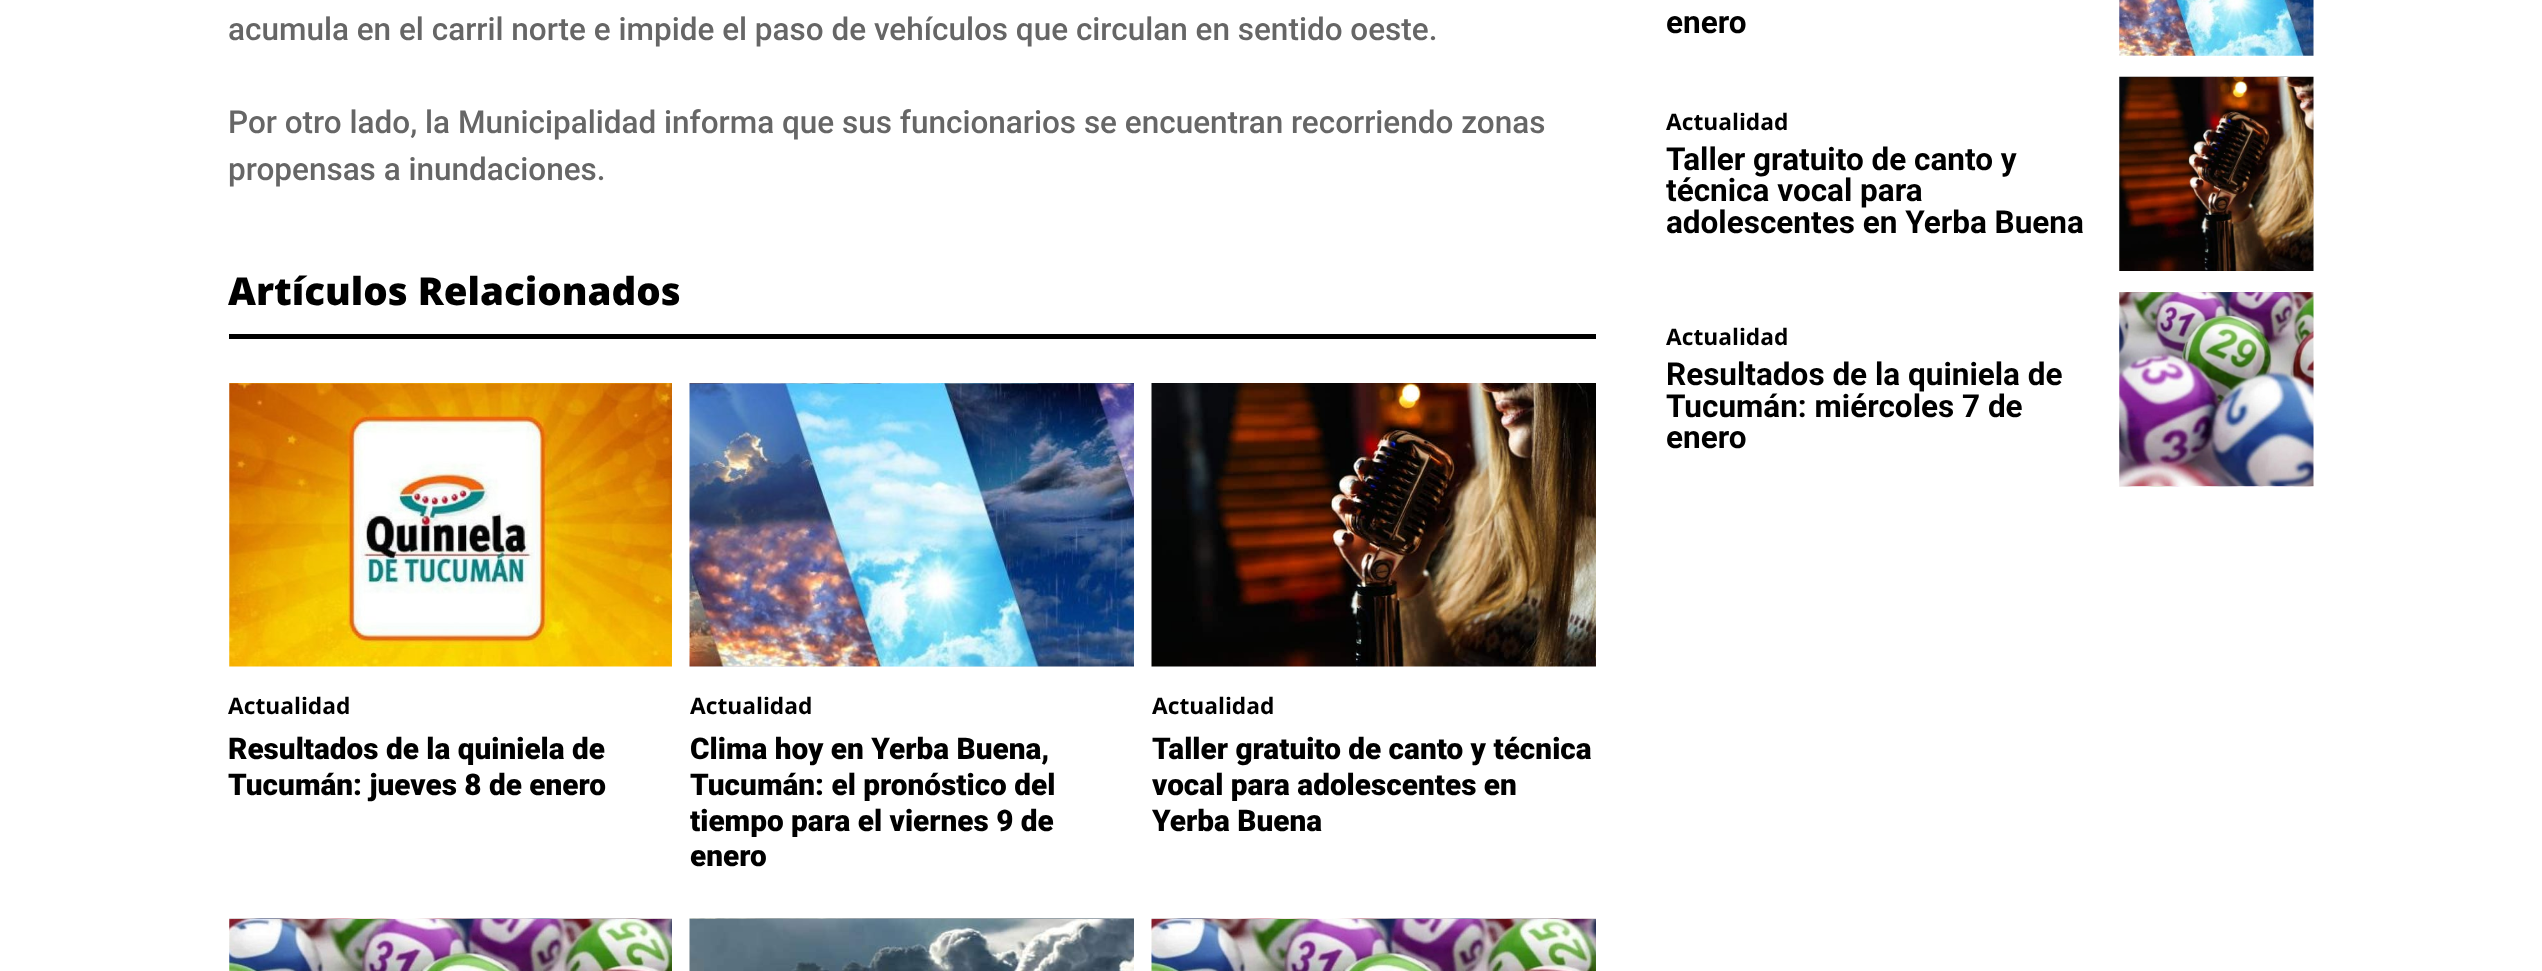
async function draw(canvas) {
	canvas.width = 2542;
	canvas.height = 971;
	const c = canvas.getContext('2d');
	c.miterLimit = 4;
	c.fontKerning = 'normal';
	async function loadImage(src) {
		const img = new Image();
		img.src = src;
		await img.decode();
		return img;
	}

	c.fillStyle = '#fff';
	c.fillRect(0, 0, 2542, 971);
	c.font = '500 31.5px Roboto';
	c.fillStyle = '#666';
	for (const [text, x, y] of [
		['acumula en el carril norte e impide el paso de vehículos que circulan en sentido oeste.', 228, 40],
		['Por otro lado, la Municipalidad informa que sus funcionarios se encuentran recorriendo zonas', 228, 133],
		['propensas a inundaciones.', 228, 180],
	]) {
		c.fillText(text, x, y);
	}
	c.fillStyle = '#000';
	c.fillRect(229, 334, 1367, 5);
	c.font = '800 38.5px Open Sans';
	c.fillText('Artículos Relacionados', 228, 305);
	c.drawImage(await loadImage('img1.png'), 229, 383, 443, 284);
	c.font = 'bold 22.75px Open Sans';
	c.fillText('Actualidad', 228, 714);
	c.font = '900 29.75px Roboto';
	c.fillText('Resultados de la quiniela de', 228, 759);
	c.fillText('Tucumán: jueves 8 de enero', 228, 795);
	c.drawImage(await loadImage('img2.png'), 689, 383, 445, 284);
	c.font = 'bold 22.75px Open Sans';
	c.fillText('Actualidad', 690, 714);
	c.font = '900 29.75px Roboto';
	for (const [text, x, y] of [
		['Clima hoy en Yerba Buena,', 690, 759],
		['Tucumán: el pronóstico del', 690, 795],
		['tiempo para el viernes 9 de', 690, 831],
		['enero', 690, 866],
	]) {
		c.fillText(text, x, y);
	}
	c.drawImage(await loadImage('img3.png'), 1151, 383, 445, 284);
	c.font = 'bold 22.75px Open Sans';
	c.fillText('Actualidad', 1152, 714);
	c.font = '900 29.75px Roboto';
	for (const [text, x, y] of [
		['Taller gratuito de canto y técnica', 1152, 759],
		['vocal para adolescentes en', 1152, 795],
		['Yerba Buena', 1152, 831],
	]) {
		c.fillText(text, x, y);
	}
	c.drawImage(await loadImage('img4.png'), 229, 918, 443, 53);
	c.drawImage(await loadImage('img5.png'), 689, 918, 445, 53);
	c.drawImage(await loadImage('img6.png'), 1151, 918, 445, 53);
	c.font = 'bold 31.5px Roboto';
	c.fillText('enero', 1666, 33);
	c.drawImage(await loadImage('img7.png'), 2119, 0, 195, 56);
	c.font = 'bold 22.75px Open Sans';
	c.fillText('Actualidad', 1666, 130);
	c.font = 'bold 31.5px Roboto';
	for (const [text, x, y] of [
		['Taller gratuito de canto y', 1666, 170],
		['técnica vocal para', 1666, 201],
		['adolescentes en Yerba Buena', 1666, 233],
	]) {
		c.fillText(text, x, y);
	}
	c.drawImage(await loadImage('img8.png'), 2119, 76, 195, 195);
	c.font = 'bold 22.75px Open Sans';
	c.fillText('Actualidad', 1666, 345);
	c.font = 'bold 31.5px Roboto';
	for (const [text, x, y] of [
		['Resultados de la quiniela de', 1666, 385],
		['Tucumán: miércoles 7 de', 1666, 417],
		['enero', 1666, 448],
	]) {
		c.fillText(text, x, y);
	}
	c.drawImage(await loadImage('img9.png'), 2119, 292, 195, 195);
}

draw(document.querySelector('canvas'));
